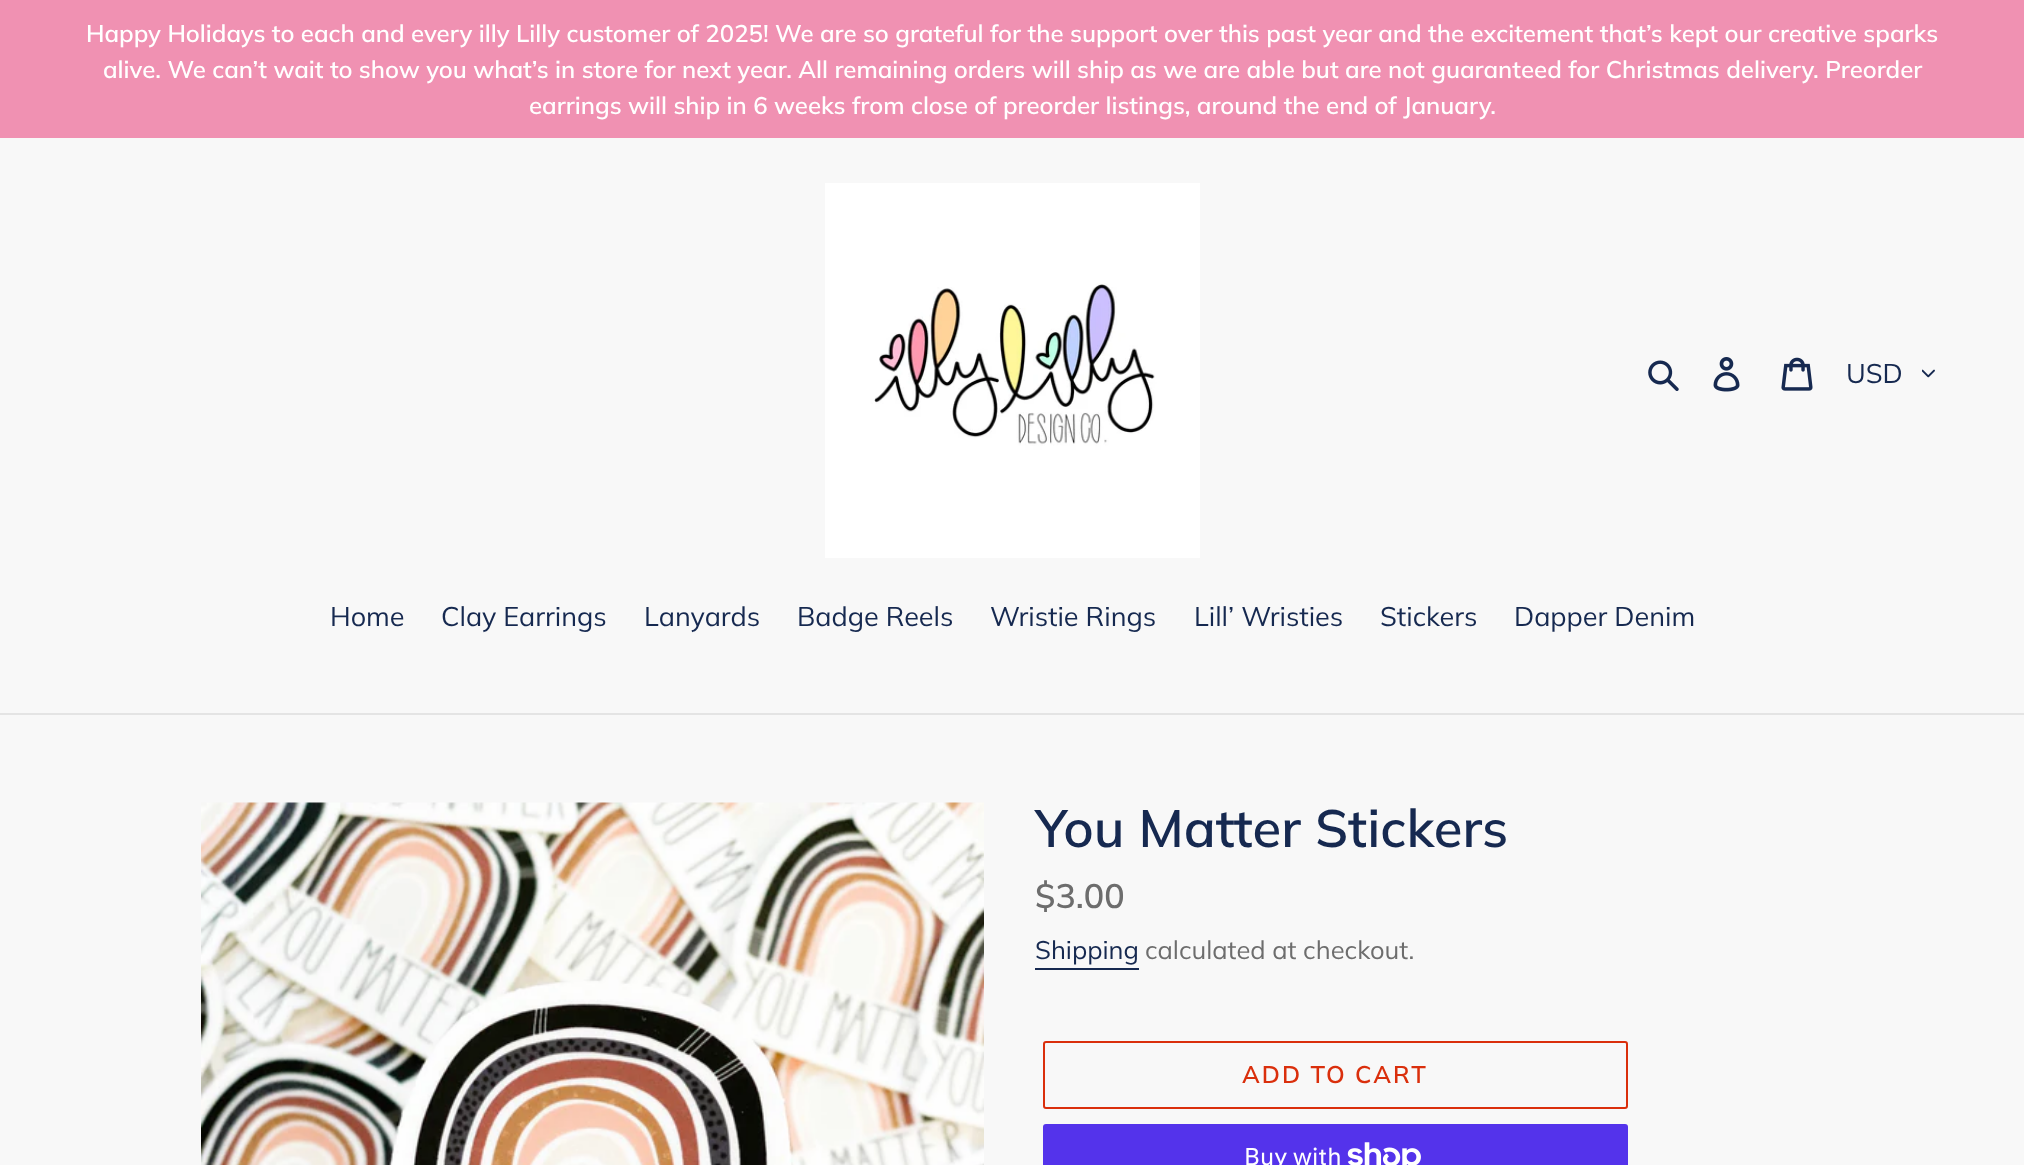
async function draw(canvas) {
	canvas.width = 2024;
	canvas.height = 1165;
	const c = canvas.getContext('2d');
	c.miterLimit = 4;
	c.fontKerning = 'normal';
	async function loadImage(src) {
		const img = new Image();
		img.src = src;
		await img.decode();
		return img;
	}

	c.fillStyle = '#f8f8f8';
	c.fillRect(0, 0, 2024, 1165);
	c.fillStyle = '#f091b2';
	c.fillRect(0, 0, 2024, 138);
	c.font = '600 24px Muli';
	c.fillStyle = '#fff';
	for (const [text, x, y] of [
		['Happy Holidays to each and every illy Lilly customer of 2025! We are so grateful for the support over this past year and the excitement that’s kept our creative sparks', 86, 42],
		['alive. We can’t wait to show you what’s in store for next year. All remaining orders will ship as we are able but are not guaranteed for Christmas delivery. Preorder', 103, 78],
		['earrings will ship in 6 weeks from close of preorder listings, around the end of January.', 529, 114],
	]) {
		c.fillText(text, x, y);
	}
	c.drawImage(await loadImage('img1.png'), 825, 183, 375, 375);
	c.drawImage(await loadImage('img2.png'), 1648, 360, 31, 31);
	c.drawImage(await loadImage('img3.png'), 1713, 357, 27, 35);
	c.drawImage(await loadImage('img4.png'), 1781, 357, 32, 34);
	c.font = '27px Muli';
	c.fillStyle = '#162950';
	c.fillText('USD', 1846, 383);
	c.drawImage(await loadImage('img5.png'), 1922, 369, 13, 9);
	c.fillStyle = '#e4e4e4';
	c.fillRect(0, 713, 2024, 2);
	c.fillStyle = '#162950';
	for (const [text, x, y] of [
		['Home', 330, 626],
		['Clay Earrings', 441, 626],
		['Lanyards', 644, 626],
		['Badge Reels', 797, 626],
		['Wristie Rings', 990, 626],
		['Lill’ Wristies', 1194, 626],
		['Stickers', 1380, 626],
		['Dapper Denim', 1514, 626],
	]) {
		c.fillText(text, x, y);
	}
	c.drawImage(await loadImage('img6.png'), 201, 802, 783, 363);
	c.font = '600 52.5px Muli';
	c.fillText('You Matter Stickers', 1035, 847);
	c.font = '600 34px Muli';
	c.fillStyle = '#6d6d6d';
	c.fillText('$3.00', 1035, 908);
	c.font = '25.5px Muli';
	c.fillStyle = '#162950';
	c.fillText('Shipping', 1035, 959);
	c.fillRect(1035, 968, 104, 2);
	c.fillStyle = '#6d6d6d';
	c.fillText('calculated at checkout.', 1145, 959);
	c.beginPath();
	c.roundRect(1044, 1042, 583, 66, 2);
	c.strokeStyle = '#da2f0c';
	c.lineWidth = 2;
	c.stroke();
	c.letterSpacing = '2px';
	c.font = '600 24px Muli';
	c.fillStyle = '#da2f0c';
	c.fillText('ADD TO CART', 1242, 1083);
	c.fillStyle = '#5433eb';
	c.beginPath();
	c.roundRect(1043, 1124, 585, 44, 3);
	c.fill();
	c.letterSpacing = '0px';
	c.font = '24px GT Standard';
	c.fillStyle = '#fff';
	c.fillText('Buy with', 1244, 1165);
	c.drawImage(await loadImage('img7.png'), 1347, 1142, 74, 23);
}

draw(document.querySelector('canvas'));
